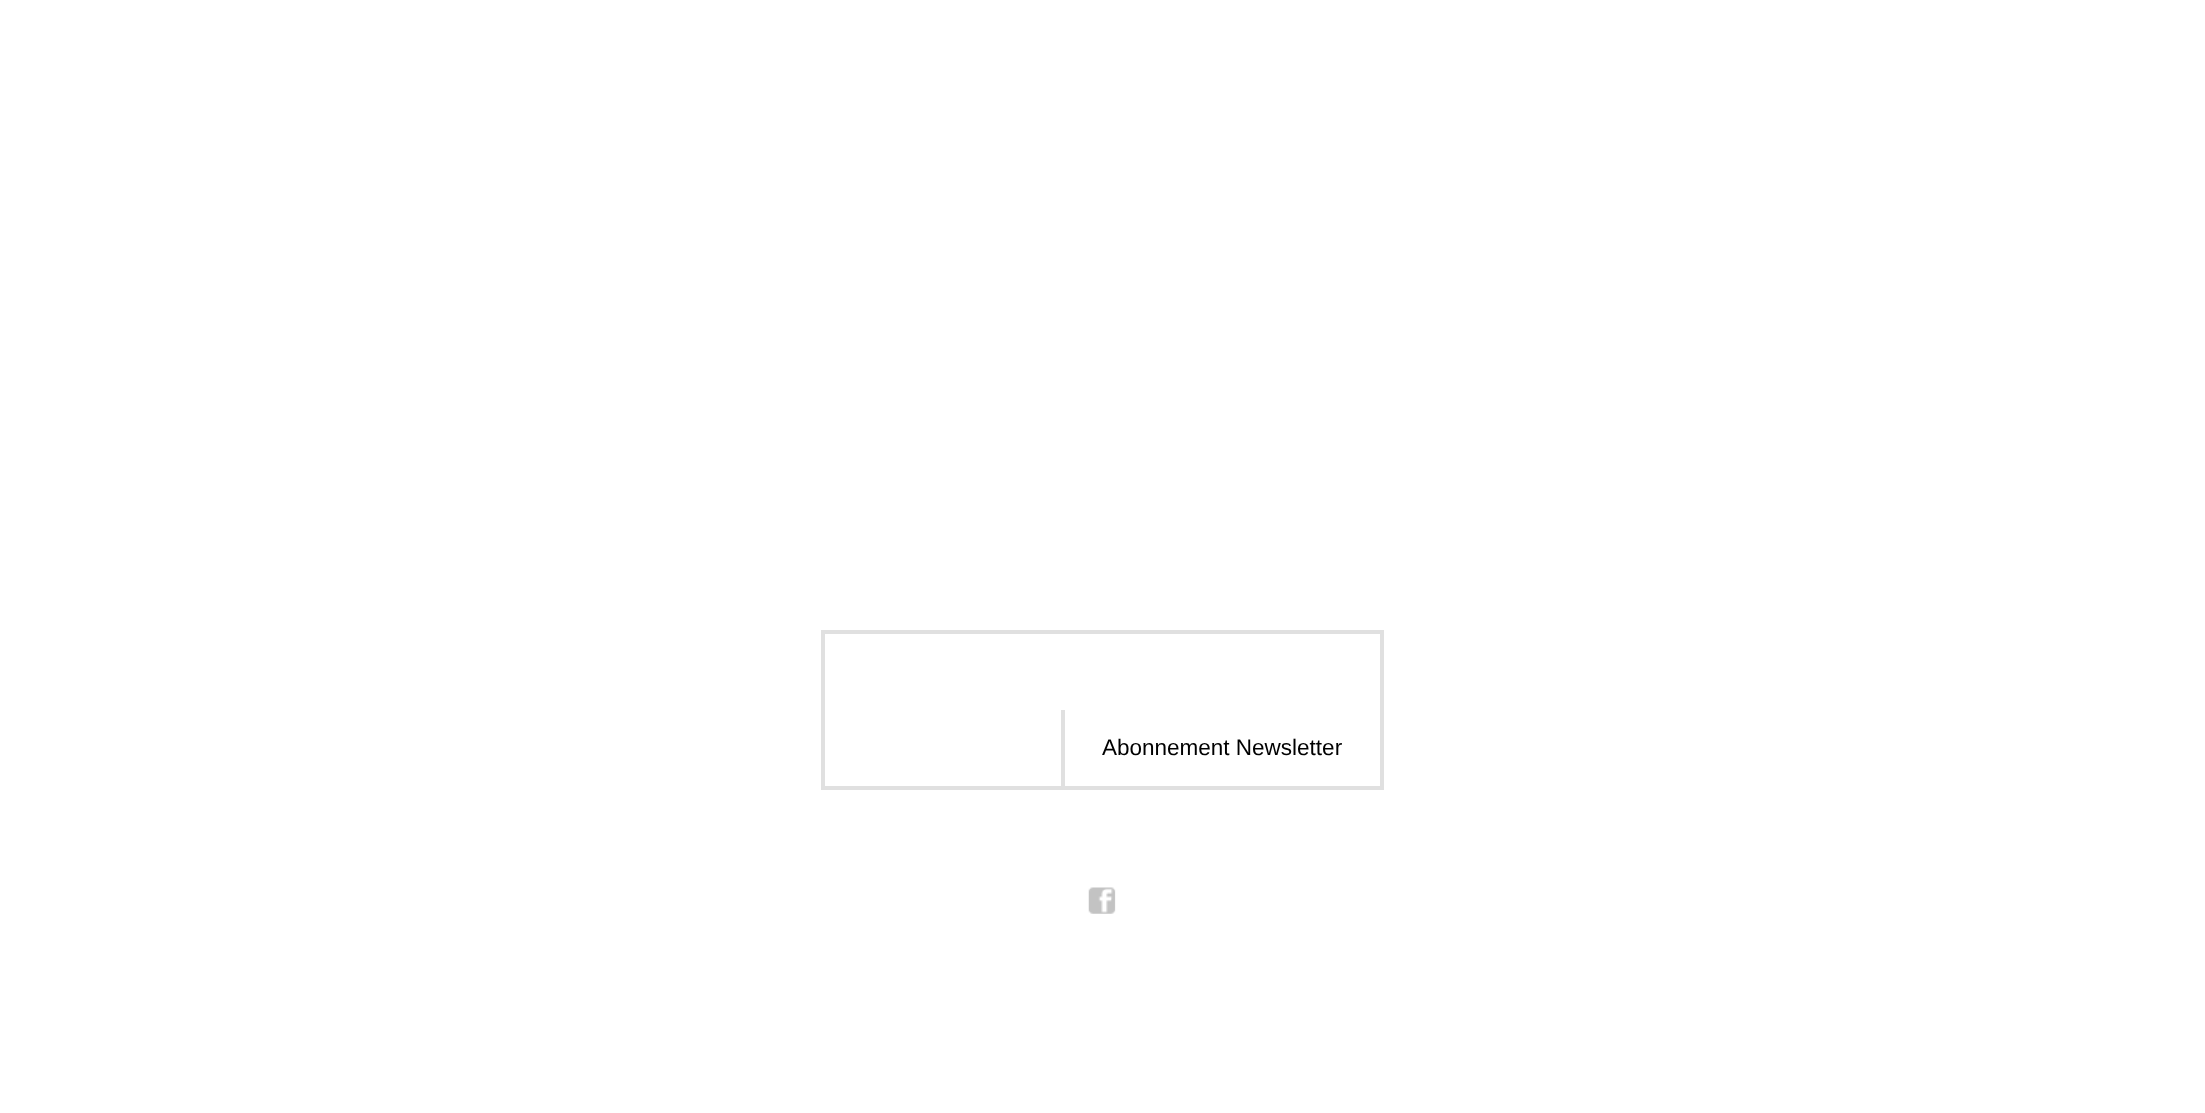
async function draw(canvas) {
	canvas.width = 2205;
	canvas.height = 1113;
	const c = canvas.getContext('2d');
	c.miterLimit = 4;
	c.fontKerning = 'normal';
	async function loadImage(src) {
		const img = new Image();
		img.src = src;
		await img.decode();
		return img;
	}

	c.fillStyle = '#fff';
	c.fillRect(0, 0, 2205, 1113);
	c.strokeStyle = '#e0e0e0';
	c.lineWidth = 4;
	c.strokeRect(823, 632, 559, 156);
	c.fillStyle = '#e0e0e0';
	c.fillRect(1061, 710, 4, 76);
	c.font = '22.5px Liberation Sans';
	c.fillStyle = '#000';
	c.fillText('Abonnement Newsletter', 1102, 755);
	c.drawImage(await loadImage('img1.png'), 1088, 887, 28, 27);
}

draw(document.querySelector('canvas'));
